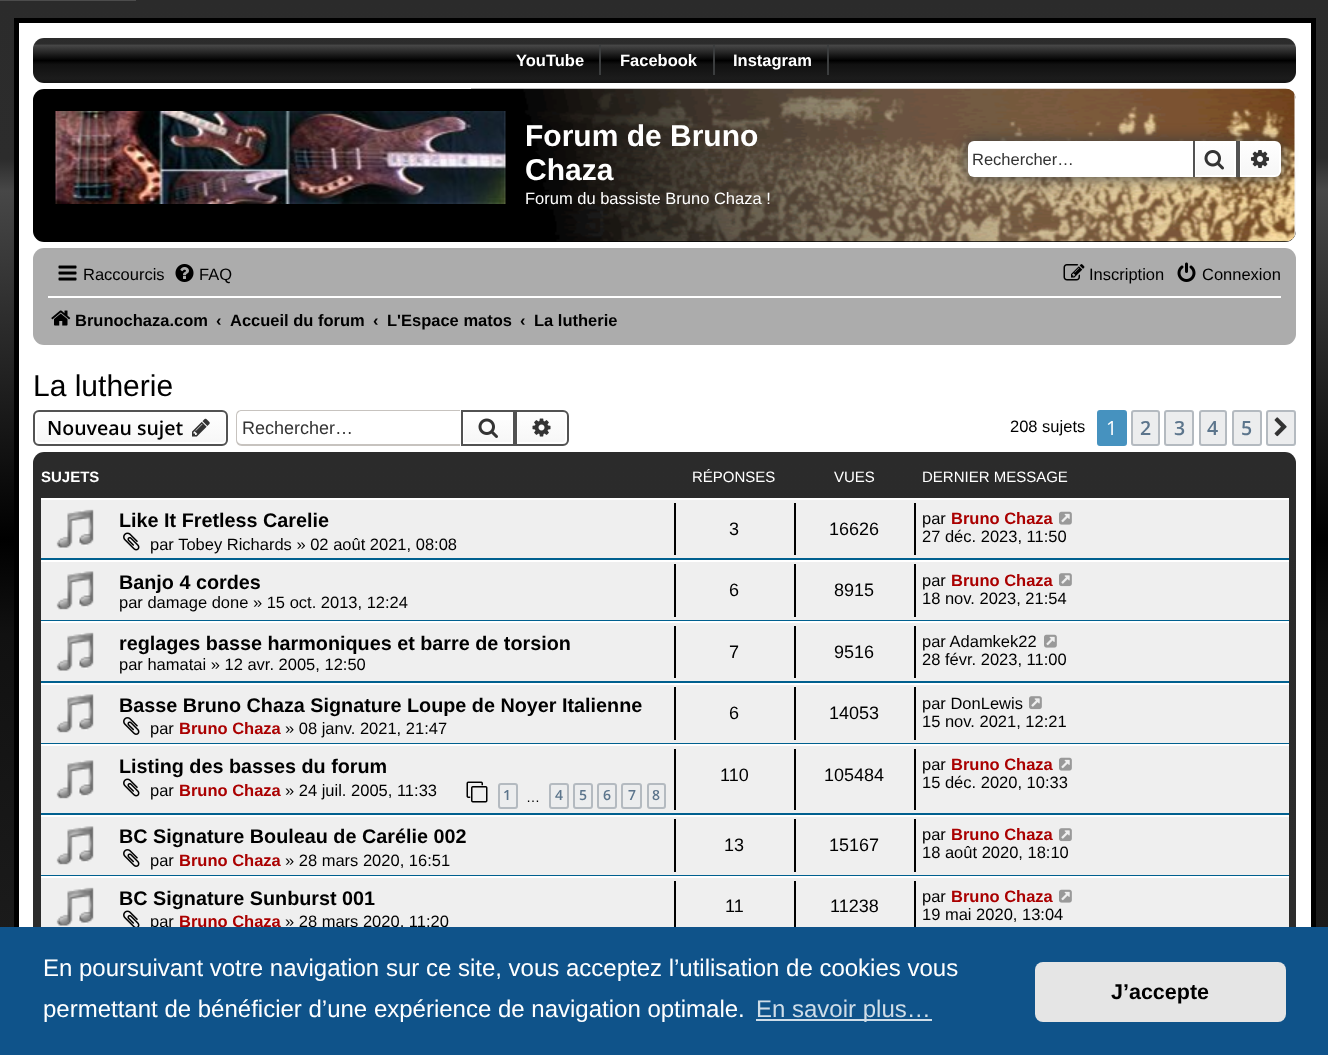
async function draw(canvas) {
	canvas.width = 1328;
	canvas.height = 1055;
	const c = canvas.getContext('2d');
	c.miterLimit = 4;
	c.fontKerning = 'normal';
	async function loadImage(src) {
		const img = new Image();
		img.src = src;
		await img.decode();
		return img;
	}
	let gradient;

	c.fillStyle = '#fff';
	c.fillRect(0, 0, 1328, 1055);
	gradient = c.createLinearGradient(664, 0, 665, 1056);
	gradient.addColorStop(0, '#4c4c4c');
	gradient.addColorStop(0, '#595959');
	gradient.addColorStop(0, '#666');
	gradient.addColorStop(0, '#2b2b2b');
	gradient.addColorStop(0.15, '#2c2c2c');
	gradient.addColorStop(0.18, '#474747');
	gradient.addColorStop(0.51, '#000');
	gradient.addColorStop(0.6, '#111');
	gradient.addColorStop(0.91, '#1c1c1c');
	gradient.addColorStop(1, '#131313');
	c.fillStyle = gradient;
	c.fillRect(0, 0, 1328, 927);
	c.fillStyle = '#fff';
	c.fillRect(19, 23, 1292, 904);
	c.strokeStyle = '#000';
	c.lineWidth = 5;
	c.strokeRect(16.5, 20.5, 1297, 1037);
	gradient = c.createLinearGradient(665, 37, 665, 83);
	gradient.addColorStop(0, '#4c4c4c');
	gradient.addColorStop(0, '#595959');
	gradient.addColorStop(0, '#666');
	gradient.addColorStop(0, '#2b2b2b');
	gradient.addColorStop(0.15, '#2c2c2c');
	gradient.addColorStop(0.18, '#474747');
	gradient.addColorStop(0.51, '#000');
	gradient.addColorStop(0.6, '#111');
	gradient.addColorStop(0.91, '#1c1c1c');
	gradient.addColorStop(1, '#131313');
	c.fillStyle = gradient;
	c.beginPath();
	c.roundRect(33, 38, 1263, 45, 11);
	c.fill();
	c.fillStyle = '#3b3d3e';
	c.fillRect(599, 45, 2, 30);
	c.font = 'bold 16.5px Liberation Sans';
	c.fillStyle = '#fff';
	c.fillText('YouTube', 516, 66);
	c.fillStyle = '#3b3d3e';
	c.fillRect(713, 45, 2, 30);
	c.fillStyle = '#fff';
	c.fillText('Facebook', 620, 66);
	c.fillStyle = '#3b3d3e';
	c.fillRect(827, 45, 2, 30);
	c.fillStyle = '#fff';
	c.fillText('Instagram', 733, 66);
	c.fillStyle = '#000';
	c.beginPath();
	c.roundRect(33, 89, 1263, 153, 11);
	c.fill();
	c.drawImage(await loadImage('img1.png'), 471, 88, 825, 154);
	c.drawImage(await loadImage('img2.png'), 55, 111, 451, 93);
	c.font = 'bold 30px Liberation Sans';
	c.fillStyle = '#fff';
	c.fillText('Forum de Bruno', 525, 146);
	c.fillText('Chaza', 525, 180);
	c.font = '16.5px Liberation Sans';
	c.fillText('Forum du bassiste Bruno Chaza !', 525, 204);
	c.fillStyle = '#3b3d3e';
	c.filter = 'blur(7.5px)';
	c.beginPath();
	c.roundRect(968, 141, 313, 36, 6);
	c.fill();
	c.filter = 'none';
	c.fillStyle = '#fff';
	c.beginPath();
	c.roundRect(968, 141, 225, 36, [6, 0, 0, 6]);
	c.fill();
	c.fillStyle = '#333';
	c.fillText('Rechercher…', 972, 165);
	gradient = c.createLinearGradient(1215, 141, 1215, 177);
	gradient.addColorStop(0, '#fff');
	gradient.addColorStop(1, '#f6f6f6');
	c.fillStyle = gradient;
	c.fillRect(1196, 143, 38, 32);
	c.strokeStyle = '#fff';
	c.lineWidth = 2;
	c.strokeRect(1195, 142, 40, 34);
	c.fillStyle = '#525252';
	c.fillRect(1236, 141, 2, 36);
	c.fillRect(1193, 141, 2, 36);
	c.drawImage(await loadImage('img3.png'), 1204, 150, 20, 20);
	gradient = c.createLinearGradient(1260, 141, 1260, 177);
	gradient.addColorStop(0, '#fff');
	gradient.addColorStop(1, '#f6f6f6');
	c.fillStyle = gradient;
	c.beginPath();
	c.roundRect(1240, 142, 40, 34, [0, 5, 5, 0]);
	c.fill();
	c.stroke();
	c.fillStyle = '#525252';
	c.fillRect(1238, 141, 2, 36);
	c.drawImage(await loadImage('img4.png'), 1251, 150, 18, 18);
	c.fillStyle = '#acacac';
	c.beginPath();
	c.roundRect(33, 248, 1263, 97, 11);
	c.fill();
	c.drawImage(await loadImage('img5.png'), 58, 265, 19, 16);
	c.fillStyle = '#000';
	c.fillText('Raccourcis', 83, 280);
	c.drawImage(await loadImage('img6.png'), 175, 264, 19, 18);
	c.fillText('FAQ', 199, 280);
	c.drawImage(await loadImage('img7.png'), 1063, 264, 22, 17);
	c.fillText('Inscription', 1089, 280);
	c.drawImage(await loadImage('img8.png'), 1177, 262, 19, 20);
	c.fillText('Connexion', 1202, 280);
	c.fillStyle = '#fff';
	c.fillRect(48, 296, 1233, 2);
	c.drawImage(await loadImage('img9.png'), 51, 310, 20, 16);
	c.font = 'bold 16.5px Liberation Sans';
	c.fillStyle = '#000';
	for (const [text, x, y] of [
		['Brunochaza.com', 75, 326],
		['‹', 216, 326],
		['Accueil du forum', 230, 326],
		['‹', 373, 326],
		['L\'Espace matos', 387, 326],
		['‹', 520, 326],
		['La lutherie', 534, 326],
	]) {
		c.fillText(text, x, y);
	}
	c.font = '30px Liberation Sans';
	c.fillText('La lutherie', 33, 396);
	c.save();
	c.beginPath();
	c.roundRect(33, 410, 195, 36, 6);
	c.clip();
	gradient = c.createLinearGradient(131, 411, 131, 444);
	gradient.addColorStop(0, '#fff');
	gradient.addColorStop(1, '#f6f6f6');
	c.fillStyle = gradient;
	c.fillRect(33, 411, 195, 33);
	c.restore();
	c.beginPath();
	c.roundRect(36, 412, 190, 31, 4);
	c.stroke();
	c.beginPath();
	c.roundRect(34, 411, 193, 34, 5);
	c.strokeStyle = '#525252';
	c.stroke();
	c.font = '600 19.5px Open Sans';
	c.fillText('Nouveau sujet', 47, 435);
	c.drawImage(await loadImage('img10.png'), 192, 418, 18, 19);
	c.fillStyle = '#c7c3bf';
	c.beginPath();
	c.moveTo(242, 410);
	c.lineTo(460, 410);
	c.lineTo(460, 446);
	c.lineTo(242, 446);
	c.bezierCurveTo(238, 446, 236, 443, 236, 440);
	c.lineTo(236, 416);
	c.bezierCurveTo(236, 412, 238, 410, 242, 410);
	c.closePath();
	c.moveTo(242, 411);
	c.lineTo(460, 411);
	c.lineTo(460, 444);
	c.lineTo(242, 444);
	c.bezierCurveTo(239, 444, 237, 442, 237, 440);
	c.lineTo(237, 416);
	c.bezierCurveTo(237, 413, 239, 411, 242, 411);
	c.closePath();
	c.fill('evenodd');
	c.font = '18px Liberation Sans';
	c.fillStyle = '#333';
	c.fillText('Rechercher…', 242, 434);
	gradient = c.createLinearGradient(488, 411, 488, 444);
	gradient.addColorStop(0, '#fff');
	gradient.addColorStop(1, '#f6f6f6');
	c.fillStyle = gradient;
	c.fillRect(464, 420, 47, 22);
	c.strokeRect(462, 411, 52, 34);
	c.drawImage(await loadImage('img11.png'), 478, 418, 20, 20);
	c.save();
	c.beginPath();
	c.roundRect(515, 410, 54, 36, [0, 6, 6, 0]);
	c.clip();
	gradient = c.createLinearGradient(542, 411, 542, 444);
	gradient.addColorStop(0, '#fff');
	gradient.addColorStop(1, '#f6f6f6');
	c.fillStyle = gradient;
	c.fillRect(518, 411, 51, 33);
	c.restore();
	c.beginPath();
	c.roundRect(517, 412, 49, 31, [0, 4, 4, 0]);
	c.strokeStyle = '#fff';
	c.stroke();
	c.beginPath();
	c.roundRect(516, 411, 52, 34, [0, 5, 5, 0]);
	c.strokeStyle = '#525252';
	c.stroke();
	c.drawImage(await loadImage('img12.png'), 532, 418, 19, 19);
	c.font = '16.5px Liberation Sans';
	c.fillStyle = '#000';
	c.fillText('208 sujets', 1010, 432);
	c.fillStyle = '#4692bf';
	c.beginPath();
	c.roundRect(1098, 411, 28, 34, 2);
	c.fill();
	c.strokeStyle = '#4692bf';
	c.stroke();
	c.font = '19.5px Open Sans';
	c.fillStyle = '#fff';
	c.fillText('1', 1106, 435);
	c.fillStyle = '#ecedee';
	c.beginPath();
	c.roundRect(1132, 411, 27, 34, 2);
	c.fill();
	c.strokeStyle = '#b4bac0';
	c.stroke();
	c.font = '600 19.5px Open Sans';
	c.fillStyle = '#5c758c';
	c.fillText('2', 1140, 435);
	c.fillStyle = '#ecedee';
	c.beginPath();
	c.roundRect(1165, 411, 28, 34, 2);
	c.fill();
	c.stroke();
	c.fillStyle = '#5c758c';
	c.fillText('3', 1174, 435);
	c.fillStyle = '#ecedee';
	c.beginPath();
	c.roundRect(1200, 411, 26, 34, 2);
	c.fill();
	c.stroke();
	c.fillStyle = '#5c758c';
	c.fillText('4', 1207, 435);
	c.fillStyle = '#ecedee';
	c.beginPath();
	c.roundRect(1233, 411, 28, 34, 2);
	c.fill();
	c.stroke();
	c.fillStyle = '#5c758c';
	c.fillText('5', 1241, 435);
	c.fillStyle = '#ecedee';
	c.beginPath();
	c.roundRect(1267, 411, 28, 34, 2);
	c.fill();
	c.stroke();
	c.drawImage(await loadImage('img13.png'), 1274, 417, 13, 20);
	gradient = c.createLinearGradient(664, 452, 665, 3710);
	gradient.addColorStop(0, '#4c4c4c');
	gradient.addColorStop(0, '#595959');
	gradient.addColorStop(0, '#666');
	gradient.addColorStop(0, '#2b2b2b');
	gradient.addColorStop(0.15, '#2c2c2c');
	gradient.addColorStop(0.18, '#474747');
	gradient.addColorStop(0.51, '#000');
	gradient.addColorStop(0.6, '#111');
	gradient.addColorStop(0.91, '#1c1c1c');
	gradient.addColorStop(1, '#131313');
	c.fillStyle = gradient;
	c.beginPath();
	c.roundRect(33, 452, 1263, 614, 11);
	c.fill();
	c.font = 'bold 15px Liberation Sans';
	c.fillStyle = '#fff';
	c.fillText('SUJETS', 41, 482);
	c.font = '15px Liberation Sans';
	for (const [text, x, y] of [
		['RÉPONSES', 692, 482],
		['VUES', 834, 482],
		['DERNIER MESSAGE', 922, 482],
	]) {
		c.fillText(text, x, y);
	}
	for (const [x, y, w, h, color] of [
		[41, 500, 1248, 58, '#efefef'],
		[41, 498, 1248, 2, '#fff'],
		[41, 558, 1248, 2, '#00608f'],
	]) {
		c.fillStyle = color;
		c.fillRect(x, y, w, h);
	}
	c.drawImage(await loadImage('img14.png'), 56, 509, 38, 39);
	c.font = 'bold 19.8px Liberation Sans';
	c.fillStyle = '#000';
	c.fillText('Like It Fretless Carelie', 119, 527);
	c.drawImage(await loadImage('img15.png'), 123, 532, 17, 19);
	c.font = '16.5px Liberation Sans';
	c.fillText('par Tobey Richards » 02 août 2021, 08:08', 150, 550);
	c.fillRect(674, 503, 2, 52);
	c.font = '18px Liberation Sans';
	c.fillText('3', 729, 535);
	c.fillRect(794, 503, 2, 52);
	c.fillText('16626', 829, 535);
	c.fillRect(914, 503, 2, 52);
	c.font = '16.5px Liberation Sans';
	c.fillText('par', 922, 524);
	c.font = 'bold 16.5px Liberation Sans';
	c.fillStyle = '#a00';
	c.fillText('Bruno Chaza', 951, 524);
	c.drawImage(await loadImage('img16.png'), 1059, 511, 13, 14);
	c.font = '16.5px Liberation Sans';
	c.fillStyle = '#000';
	c.fillText('27 déc. 2023, 11:50', 922, 542);
	for (const [x, y, w, h, color] of [
		[41, 562, 1248, 58, '#efefef'],
		[41, 560, 1248, 2, '#fff'],
		[41, 620, 1248, 1, '#00608f'],
	]) {
		c.fillStyle = color;
		c.fillRect(x, y, w, h);
	}
	c.drawImage(await loadImage('img17.png'), 56, 571, 38, 39);
	c.font = 'bold 19.8px Liberation Sans';
	c.fillStyle = '#000';
	c.fillText('Banjo 4 cordes', 119, 589);
	c.font = '16.5px Liberation Sans';
	c.fillText('par damage done » 15 oct. 2013, 12:24', 119, 608);
	c.fillRect(674, 564, 2, 53);
	c.font = '18px Liberation Sans';
	c.fillText('6', 729, 596);
	c.fillRect(794, 564, 2, 53);
	c.fillText('8915', 834, 596);
	c.fillRect(914, 564, 2, 53);
	c.font = '16.5px Liberation Sans';
	c.fillText('par', 922, 586);
	c.font = 'bold 16.5px Liberation Sans';
	c.fillStyle = '#a00';
	c.fillText('Bruno Chaza', 951, 586);
	c.drawImage(await loadImage('img18.png'), 1059, 573, 13, 14);
	c.font = '16.5px Liberation Sans';
	c.fillStyle = '#000';
	c.fillText('18 nov. 2023, 21:54', 922, 604);
	for (const [x, y, w, h, color] of [
		[41, 623, 1248, 58, '#efefef'],
		[41, 621, 1248, 2, '#fff'],
		[41, 681, 1248, 2, '#00608f'],
	]) {
		c.fillStyle = color;
		c.fillRect(x, y, w, h);
	}
	c.drawImage(await loadImage('img14.png'), 56, 632, 38, 39);
	c.font = 'bold 19.8px Liberation Sans';
	c.fillStyle = '#000';
	c.fillText('reglages basse harmoniques et barre de torsion', 119, 650);
	c.font = '16.5px Liberation Sans';
	c.fillText('par hamatai » 12 avr. 2005, 12:50', 119, 670);
	c.fillRect(674, 626, 2, 52);
	c.font = '18px Liberation Sans';
	c.fillText('7', 729, 658);
	c.fillRect(794, 626, 2, 52);
	c.fillText('9516', 834, 658);
	c.fillRect(914, 626, 2, 52);
	c.font = '16.5px Liberation Sans';
	c.fillText('par Adamkek22', 922, 647);
	c.drawImage(await loadImage('img16.png'), 1044, 634, 13, 14);
	c.fillText('28 févr. 2023, 11:00', 922, 665);
	for (const [x, y, w, h, color] of [
		[41, 685, 1248, 58, '#efefef'],
		[41, 683, 1248, 2, '#fff'],
		[41, 743, 1248, 1, '#00608f'],
	]) {
		c.fillStyle = color;
		c.fillRect(x, y, w, h);
	}
	c.drawImage(await loadImage('img17.png'), 56, 694, 38, 39);
	c.font = 'bold 19.8px Liberation Sans';
	c.fillStyle = '#000';
	c.fillText('Basse Bruno Chaza Signature Loupe de Noyer Italienne', 119, 712);
	c.drawImage(await loadImage('img19.png'), 123, 717, 17, 18);
	c.font = '16.5px Liberation Sans';
	c.fillText('par', 150, 734);
	c.font = 'bold 16.5px Liberation Sans';
	c.fillStyle = '#a00';
	c.fillText('Bruno Chaza', 179, 734);
	c.font = '16.5px Liberation Sans';
	c.fillStyle = '#000';
	c.fillText('» 08 janv. 2021, 21:47', 285, 734);
	c.fillRect(674, 687, 2, 53);
	c.font = '18px Liberation Sans';
	c.fillText('6', 729, 719);
	c.fillRect(794, 687, 2, 53);
	c.fillText('14053', 829, 719);
	c.fillRect(914, 687, 2, 53);
	c.font = '16.5px Liberation Sans';
	c.fillText('par DonLewis', 922, 709);
	c.drawImage(await loadImage('img18.png'), 1029, 696, 13, 14);
	c.fillText('15 nov. 2021, 12:21', 922, 727);
	for (const [x, y, w, h, color] of [
		[41, 746, 1248, 67, '#efefef'],
		[41, 744, 1248, 2, '#fff'],
		[41, 813, 1248, 2, '#00608f'],
	]) {
		c.fillStyle = color;
		c.fillRect(x, y, w, h);
	}
	c.drawImage(await loadImage('img17.png'), 56, 760, 38, 39);
	c.font = 'bold 19.8px Liberation Sans';
	c.fillStyle = '#000';
	c.fillText('Listing des basses du forum', 119, 773);
	c.drawImage(await loadImage('img15.png'), 123, 778, 17, 19);
	c.font = '16.5px Liberation Sans';
	c.fillText('par', 150, 796);
	c.font = 'bold 16.5px Liberation Sans';
	c.fillStyle = '#a00';
	c.fillText('Bruno Chaza', 179, 796);
	c.font = '16.5px Liberation Sans';
	c.fillStyle = '#000';
	c.fillText('» 24 juil. 2005, 11:33', 285, 796);
	c.drawImage(await loadImage('img20.png'), 466, 781, 22, 22);
	c.fillStyle = '#ecedee';
	c.beginPath();
	c.roundRect(499, 784, 18, 24, 2);
	c.fill();
	c.stroke();
	c.font = '600 14px Open Sans';
	c.fillStyle = '#5c758c';
	c.fillText('1', 503, 800);
	c.font = '14px Liberation Sans';
	c.fillStyle = '#000';
	c.fillText('…', 526, 802);
	c.fillStyle = '#ecedee';
	c.beginPath();
	c.roundRect(550, 784, 18, 24, 2);
	c.fill();
	c.stroke();
	c.font = '600 14px Open Sans';
	c.fillStyle = '#5c758c';
	c.fillText('4', 555, 800);
	c.fillStyle = '#ecedee';
	c.beginPath();
	c.roundRect(574, 784, 18, 24, 2);
	c.fill();
	c.stroke();
	c.fillStyle = '#5c758c';
	c.fillText('5', 579, 800);
	c.fillStyle = '#ecedee';
	c.beginPath();
	c.roundRect(598, 784, 18, 24, 2);
	c.fill();
	c.stroke();
	c.fillStyle = '#5c758c';
	c.fillText('6', 603, 800);
	c.fillStyle = '#ecedee';
	c.beginPath();
	c.roundRect(622, 784, 19, 24, 2);
	c.fill();
	c.stroke();
	c.fillStyle = '#5c758c';
	c.fillText('7', 628, 800);
	c.fillStyle = '#ecedee';
	c.beginPath();
	c.roundRect(648, 784, 17, 24, 2);
	c.fill();
	c.stroke();
	c.fillStyle = '#5c758c';
	c.fillText('8', 652, 800);
	c.fillStyle = '#000';
	c.fillRect(674, 749, 2, 61);
	c.font = '18px Liberation Sans';
	c.fillText('110', 720, 781);
	c.fillRect(794, 749, 2, 61);
	c.fillText('105484', 824, 781);
	c.fillRect(914, 749, 2, 61);
	c.font = '16.5px Liberation Sans';
	c.fillText('par', 922, 770);
	c.font = 'bold 16.5px Liberation Sans';
	c.fillStyle = '#a00';
	c.fillText('Bruno Chaza', 951, 770);
	c.drawImage(await loadImage('img16.png'), 1059, 757, 13, 14);
	c.font = '16.5px Liberation Sans';
	c.fillStyle = '#000';
	c.fillText('15 déc. 2020, 10:33', 922, 788);
	for (const [x, y, w, h, color] of [
		[41, 817, 1248, 58, '#efefef'],
		[41, 815, 1248, 2, '#fff'],
		[41, 875, 1248, 1, '#00608f'],
	]) {
		c.fillStyle = color;
		c.fillRect(x, y, w, h);
	}
	c.drawImage(await loadImage('img17.png'), 56, 826, 38, 39);
	c.font = 'bold 19.8px Liberation Sans';
	c.fillStyle = '#000';
	c.fillText('BC Signature Bouleau de Carélie 002', 119, 843);
	c.drawImage(await loadImage('img19.png'), 123, 849, 17, 18);
	c.font = '16.5px Liberation Sans';
	c.fillText('par', 150, 866);
	c.font = 'bold 16.5px Liberation Sans';
	c.fillStyle = '#a00';
	c.fillText('Bruno Chaza', 179, 866);
	c.font = '16.5px Liberation Sans';
	c.fillStyle = '#000';
	c.fillText('» 28 mars 2020, 16:51', 285, 866);
	c.fillRect(674, 819, 2, 53);
	c.font = '18px Liberation Sans';
	c.fillText('13', 724, 851);
	c.fillRect(794, 819, 2, 53);
	c.fillText('15167', 829, 851);
	c.fillRect(914, 819, 2, 53);
	c.font = '16.5px Liberation Sans';
	c.fillText('par', 922, 840);
	c.font = 'bold 16.5px Liberation Sans';
	c.fillStyle = '#a00';
	c.fillText('Bruno Chaza', 951, 840);
	c.drawImage(await loadImage('img18.png'), 1059, 828, 13, 14);
	c.font = '16.5px Liberation Sans';
	c.fillStyle = '#000';
	c.fillText('18 août 2020, 18:10', 922, 858);
	c.fillStyle = '#efefef';
	c.fillRect(41, 878, 1248, 49);
	c.fillStyle = '#fff';
	c.fillRect(41, 876, 1248, 2);
	c.drawImage(await loadImage('img14.png'), 56, 887, 38, 39);
	c.font = 'bold 19.8px Liberation Sans';
	c.fillStyle = '#000';
	c.fillText('BC Signature Sunburst 001', 119, 905);
	c.drawImage(await loadImage('img21.png'), 123, 910, 17, 17);
	c.font = '16.5px Liberation Sans';
	c.fillText('par', 150, 927);
	c.font = 'bold 16.5px Liberation Sans';
	c.fillStyle = '#a00';
	c.fillText('Bruno Chaza', 179, 927);
	c.font = '16.5px Liberation Sans';
	c.fillStyle = '#000';
	c.fillText('» 28 mars 2020, 11:20', 285, 927);
	c.fillRect(674, 881, 2, 52);
	c.font = '18px Liberation Sans';
	c.fillText('11', 725, 912);
	c.fillRect(794, 881, 2, 52);
	c.fillText('11238', 830, 912);
	c.fillRect(914, 881, 2, 52);
	c.font = '16.5px Liberation Sans';
	c.fillText('par', 922, 902);
	c.font = 'bold 16.5px Liberation Sans';
	c.fillStyle = '#a00';
	c.fillText('Bruno Chaza', 951, 902);
	c.drawImage(await loadImage('img16.png'), 1059, 889, 13, 14);
	c.font = '16.5px Liberation Sans';
	c.fillStyle = '#000';
	c.fillText('19 mai 2020, 13:04', 922, 920);
	c.fillStyle = '#0f538a';
	c.fillRect(0, 927, 1328, 128);
	c.font = '24px Liberation Sans';
	c.fillStyle = '#fff';
	c.fillText('En poursuivant votre navigation sur ce site, vous acceptez l’utilisation de cookies vous', 43, 976);
	c.fillText('permettant de bénéficier d’une expérience de navigation optimale.', 43, 1017);
	c.fillStyle = '#cfdde8';
	c.fillRect(756, 1019, 176, 2);
	c.fillText('En savoir plus…', 756, 1017);
	c.fillStyle = '#e5e5e5';
	c.beginPath();
	c.roundRect(1035, 962, 251, 60, 8);
	c.fill();
	c.font = 'bold 21.5px Liberation Sans';
	c.fillStyle = '#000';
	c.fillText('J’accepte', 1111, 999);
}

draw(document.querySelector('canvas'));
